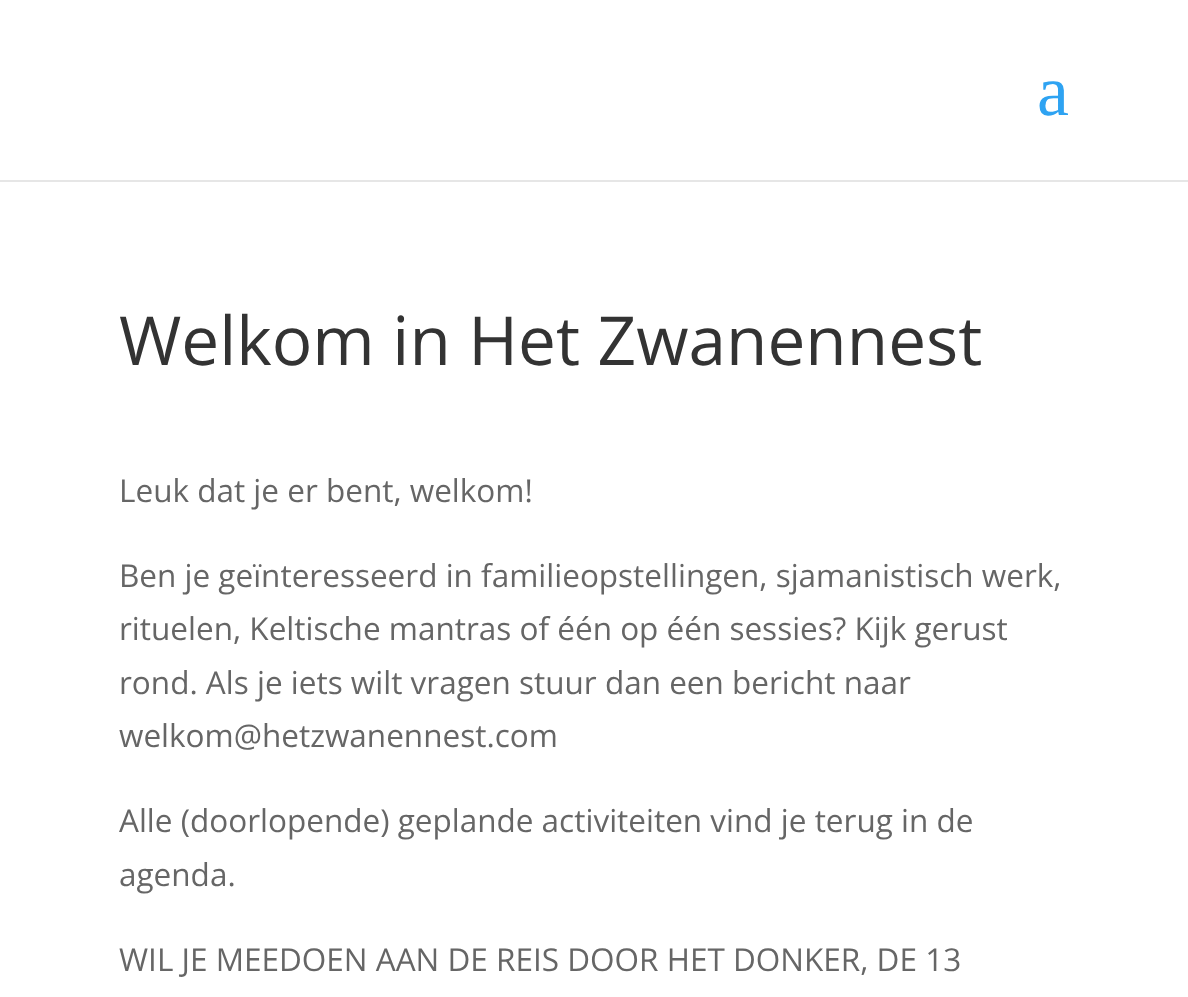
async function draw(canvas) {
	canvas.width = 1188;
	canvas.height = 997;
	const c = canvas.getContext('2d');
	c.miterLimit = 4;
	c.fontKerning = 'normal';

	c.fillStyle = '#fff';
	c.fillRect(0, 0, 1188, 997);
	c.fillStyle = '#e6e6e6';
	c.fillRect(0, 180, 1188, 2);
	c.font = '72px Liberation Serif';
	c.fillStyle = '#2ea3f2';
	c.fillText('a', 1037, 115);
	c.font = '67.5px Open Sans';
	c.fillStyle = '#333';
	c.fillText('Welkom in Het Zwanennest', 119, 365);
	c.font = '31.5px Open Sans';
	c.fillStyle = '#666';
	for (const [text, x, y] of [
		['Leuk dat je er bent, welkom!', 119, 502],
		['Ben je geïnteresseerd in familieopstellingen, sjamanistisch werk,', 119, 587],
		['rituelen, Keltische mantras of één op één sessies? Kijk gerust', 119, 640],
		['rond. Als je iets wilt vragen stuur dan een bericht naar', 119, 694],
		['welkom@hetzwanennest.com', 119, 747],
		['Alle (doorlopende) geplande activiteiten vind je terug in de', 119, 832],
		['agenda.', 119, 886],
		['WIL JE MEEDOEN AAN DE REIS DOOR HET DONKER, DE 13', 119, 971],
	]) {
		c.fillText(text, x, y);
	}
}

draw(document.querySelector('canvas'));
